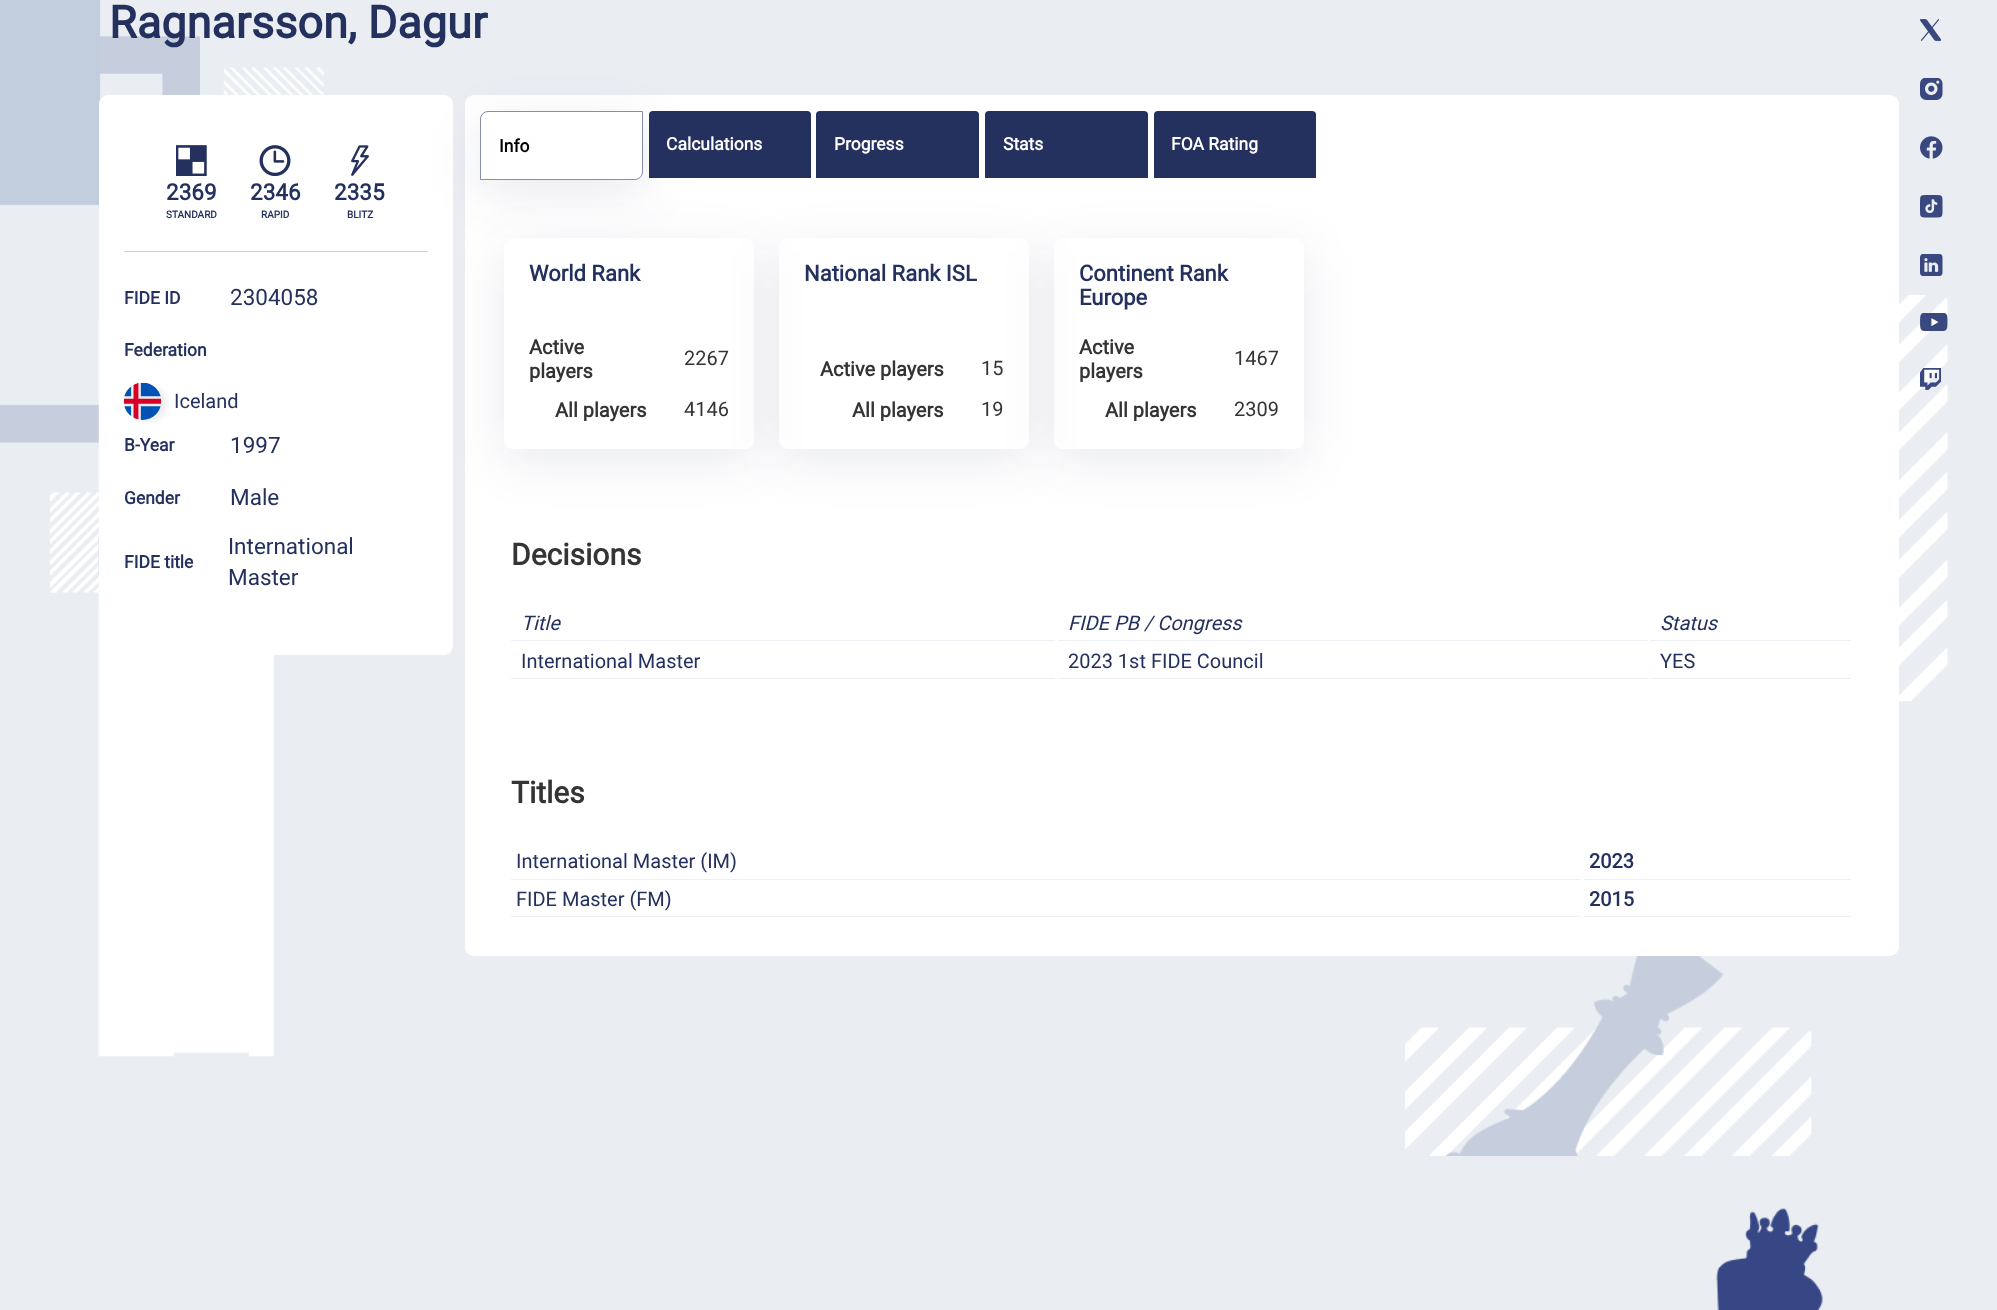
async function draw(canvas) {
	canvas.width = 1997;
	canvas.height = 1310;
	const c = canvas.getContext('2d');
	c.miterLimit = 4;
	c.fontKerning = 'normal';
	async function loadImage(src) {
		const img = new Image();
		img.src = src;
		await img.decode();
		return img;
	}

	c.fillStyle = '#eaeef3';
	c.fillRect(0, 0, 1997, 1310);
	c.drawImage(await loadImage('img1.png'), 0, 0, 200, 593);
	c.drawImage(await loadImage('img2.png'), 98, 67, 226, 990);
	c.font = 'bold 45px Roboto';
	c.fillStyle = '#24305e';
	c.fillText('Ragnarsson, Dagur', 109, 38);
	c.fillStyle = '#fff';
	c.beginPath();
	c.roundRect(99, 95, 354, 560, 9);
	c.fill();
	c.fillStyle = '#c6cddd';
	c.fillRect(124, 251, 304, 1);
	c.drawImage(await loadImage('img3.png'), 176, 145, 31, 31);
	c.font = 'bold 22.5px Roboto';
	c.fillStyle = '#24305e';
	c.fillText('2369', 166, 200);
	c.font = 'bold 10px Roboto';
	c.fillText('STANDARD', 166, 218);
	c.drawImage(await loadImage('img4.png'), 259, 145, 32, 31);
	c.font = 'bold 22.5px Roboto';
	c.fillText('2346', 250, 200);
	c.font = 'bold 10px Roboto';
	c.fillText('RAPID', 261, 218);
	c.drawImage(await loadImage('img5.png'), 351, 145, 18, 31);
	c.font = 'bold 22.5px Roboto';
	c.fillText('2335', 334, 200);
	c.font = 'bold 10px Roboto';
	c.fillText('BLITZ', 347, 218);
	c.font = 'bold 17.5px Roboto';
	c.fillText('FIDE ID', 124, 304);
	c.font = '22.5px Roboto';
	c.fillText('2304058', 230, 305);
	c.font = 'bold 17.5px Roboto';
	c.fillText('Federation', 124, 356);
	c.drawImage(await loadImage('img6.png'), 124, 383, 45, 41);
	c.font = '20px Roboto';
	c.fillText('Iceland', 174, 408);
	c.font = 'bold 17.5px Roboto';
	c.fillText('B-Year', 124, 451);
	c.font = '22.5px Roboto';
	c.fillText('1997', 230, 453);
	c.font = 'bold 17.5px Roboto';
	c.fillText('Gender', 124, 504);
	c.font = '22.5px Roboto';
	c.fillText('Male', 230, 505);
	c.font = 'bold 17.5px Roboto';
	c.fillText('FIDE title', 124, 568);
	c.font = '22.5px Roboto';
	c.fillText('International', 228, 554);
	c.fillText('Master', 228, 585);
	c.fillStyle = '#fff';
	c.beginPath();
	c.roundRect(465, 95, 1434, 861, 9);
	c.fill();
	c.fillStyle = '#24305e1a';
	c.filter = 'blur(25px)';
	c.beginPath();
	c.roundRect(480, 124, 163, 69, 8);
	c.fill();
	c.filter = 'none';
	c.save();
	c.beginPath();
	c.moveTo(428, 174);
	c.lineTo(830, 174);
	c.lineTo(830, 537);
	c.lineTo(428, 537);
	c.closePath();
	c.moveTo(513, 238);
	c.lineTo(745, 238);
	c.bezierCurveTo(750, 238, 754, 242, 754, 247);
	c.lineTo(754, 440);
	c.bezierCurveTo(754, 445, 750, 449, 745, 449);
	c.lineTo(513, 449);
	c.bezierCurveTo(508, 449, 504, 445, 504, 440);
	c.lineTo(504, 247);
	c.bezierCurveTo(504, 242, 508, 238, 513, 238);
	c.closePath();
	c.clip('evenodd');
	c.filter = 'blur(25px)';
	c.beginPath();
	c.roundRect(504, 250, 250, 211, 9);
	c.fill();
	c.filter = 'none';
	c.restore();
	c.fillStyle = '#fff';
	c.beginPath();
	c.roundRect(480.5, 111.5, 162, 68, [7.5, 0, 7.5, 0]);
	c.fill();
	c.strokeStyle = '#868cad';
	c.stroke();
	c.font = 'bold 17.5px Roboto';
	c.fillStyle = '#000';
	c.fillText('Info', 499, 152);
	c.save();
	c.beginPath();
	c.moveTo(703, 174);
	c.lineTo(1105, 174);
	c.lineTo(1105, 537);
	c.lineTo(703, 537);
	c.closePath();
	c.moveTo(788, 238);
	c.lineTo(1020, 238);
	c.bezierCurveTo(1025, 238, 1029, 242, 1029, 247);
	c.lineTo(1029, 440);
	c.bezierCurveTo(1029, 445, 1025, 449, 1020, 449);
	c.lineTo(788, 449);
	c.bezierCurveTo(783, 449, 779, 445, 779, 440);
	c.lineTo(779, 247);
	c.bezierCurveTo(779, 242, 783, 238, 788, 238);
	c.closePath();
	c.clip('evenodd');
	c.fillStyle = '#24305e1a';
	c.filter = 'blur(25px)';
	c.beginPath();
	c.roundRect(779, 250, 250, 211, 9);
	c.fill();
	c.filter = 'none';
	c.restore();
	c.fillStyle = '#24305e';
	c.beginPath();
	c.roundRect(649, 111, 162, 67, [4, 4, 0, 0]);
	c.fill();
	c.fillStyle = '#fff';
	c.fillText('Calculations', 666, 150);
	c.save();
	c.beginPath();
	c.moveTo(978, 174);
	c.lineTo(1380, 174);
	c.lineTo(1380, 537);
	c.lineTo(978, 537);
	c.closePath();
	c.moveTo(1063, 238);
	c.lineTo(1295, 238);
	c.bezierCurveTo(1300, 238, 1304, 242, 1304, 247);
	c.lineTo(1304, 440);
	c.bezierCurveTo(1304, 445, 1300, 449, 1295, 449);
	c.lineTo(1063, 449);
	c.bezierCurveTo(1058, 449, 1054, 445, 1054, 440);
	c.lineTo(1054, 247);
	c.bezierCurveTo(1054, 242, 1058, 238, 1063, 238);
	c.closePath();
	c.clip('evenodd');
	c.fillStyle = '#24305e1a';
	c.filter = 'blur(25px)';
	c.beginPath();
	c.roundRect(1054, 250, 250, 211, 9);
	c.fill();
	c.filter = 'none';
	c.restore();
	c.fillStyle = '#24305e';
	c.beginPath();
	c.roundRect(816, 111, 163, 67, [4, 4, 0, 0]);
	c.fill();
	c.fillStyle = '#fff';
	c.fillText('Progress', 834, 150);
	c.fillStyle = '#24305e';
	c.beginPath();
	c.roundRect(985, 111, 163, 67, [4, 4, 0, 0]);
	c.fill();
	c.fillStyle = '#fff';
	c.fillText('Stats', 1003, 150);
	c.fillStyle = '#24305e';
	c.beginPath();
	c.roundRect(1154, 111, 162, 67, [4, 4, 0, 0]);
	c.fill();
	c.fillStyle = '#fff';
	c.fillText('FOA Rating', 1171, 150);
	c.font = 'bold 22px Roboto';
	c.fillStyle = '#24305e';
	c.fillText('World Rank', 529, 281);
	c.font = 'bold 20px Roboto';
	c.fillStyle = '#343434';
	c.fillText('Active', 529, 354);
	c.fillText('players', 529, 378);
	c.font = '20px Roboto';
	c.fillText('2267', 684, 365);
	c.font = 'bold 20px Roboto';
	c.fillText('All players', 555, 417);
	c.font = '20px Roboto';
	c.fillText('4146', 684, 416);
	c.font = 'bold 22px Roboto';
	c.fillStyle = '#24305e';
	c.fillText('National Rank ISL', 804, 281);
	c.font = 'bold 20px Roboto';
	c.fillStyle = '#343434';
	c.fillText('Active players', 820, 376);
	c.font = '20px Roboto';
	c.fillText('15', 981, 375);
	c.font = 'bold 20px Roboto';
	c.fillText('All players', 852, 417);
	c.font = '20px Roboto';
	c.fillText('19', 981, 416);
	c.font = 'bold 22px Roboto';
	c.fillStyle = '#24305e';
	c.fillText('Continent Rank', 1079, 281);
	c.fillText('Europe', 1079, 305);
	c.font = 'bold 20px Roboto';
	c.fillStyle = '#343434';
	c.fillText('Active', 1079, 354);
	c.fillText('players', 1079, 378);
	c.font = '20px Roboto';
	c.fillText('1467', 1234, 365);
	c.font = 'bold 20px Roboto';
	c.fillText('All players', 1105, 417);
	c.font = '20px Roboto';
	c.fillText('2309', 1234, 416);
	c.font = 'bold 30px Roboto';
	c.fillText('Decisions', 511, 565);
	c.fillStyle = '#eeeef5';
	c.fillRect(511, 640, 544, 1);
	c.font = 'italic 20px Roboto';
	c.fillStyle = '#24305e';
	c.fillText('Title', 521, 630);
	c.fillStyle = '#eeeef5';
	c.fillRect(1058, 640, 590, 1);
	c.fillStyle = '#24305e';
	c.fillText('FIDE PB / Congress', 1068, 630);
	c.fillStyle = '#eeeef5';
	c.fillRect(1650, 640, 201, 1);
	c.fillStyle = '#24305e';
	c.fillText('Status', 1660, 630);
	c.fillStyle = '#eeeef5';
	c.fillRect(511, 678, 544, 1);
	c.font = '20px Roboto';
	c.fillStyle = '#24305e';
	c.fillText('International Master', 521, 668);
	c.fillStyle = '#eeeef5';
	c.fillRect(1058, 678, 590, 1);
	c.fillStyle = '#24305e';
	c.fillText('2023 1st FIDE Council', 1068, 668);
	c.fillStyle = '#eeeef5';
	c.fillRect(1650, 678, 201, 1);
	c.fillStyle = '#24305e';
	c.fillText('YES', 1660, 668);
	c.font = 'bold 30px Roboto';
	c.fillStyle = '#343434';
	c.fillText('Titles', 511, 803);
	c.fillStyle = '#eeeef5';
	c.fillRect(511, 879, 1070, 1);
	c.font = '20px Roboto';
	c.fillStyle = '#24305e';
	c.fillText('International Master (IM)', 516, 868);
	c.fillStyle = '#eeeef5';
	c.fillRect(1584, 879, 267, 1);
	c.font = 'bold 20px Roboto';
	c.fillStyle = '#24305e';
	c.fillText('2023', 1589, 868);
	c.fillStyle = '#eeeef5';
	c.fillRect(511, 916, 1070, 1);
	c.font = '20px Roboto';
	c.fillStyle = '#24305e';
	c.fillText('FIDE Master (FM)', 516, 906);
	c.fillStyle = '#eeeef5';
	c.fillRect(1584, 916, 267, 1);
	c.font = 'bold 20px Roboto';
	c.fillStyle = '#24305e';
	c.fillText('2015', 1589, 906);
	c.drawImage(await loadImage('img7.png'), 1405, 956, 407, 200);
	c.drawImage(await loadImage('img8.png'), 1920, 19, 21, 22);
	c.drawImage(await loadImage('img9.png'), 1920, 78, 23, 22);
	c.drawImage(await loadImage('img10.png'), 1920, 136, 23, 23);
	c.drawImage(await loadImage('img11.png'), 1920, 195, 23, 23);
	c.drawImage(await loadImage('img12.png'), 1920, 254, 23, 22);
	c.drawImage(await loadImage('img15.png'), 1899, 295, 49, 407);
	c.drawImage(await loadImage('img13.png'), 1920, 313, 28, 18);
	c.drawImage(await loadImage('img14.png'), 1920, 368, 21, 22);
	c.drawImage(await loadImage('img16.png'), 1716, 1208, 107, 102);
}

draw(document.querySelector('canvas'));
